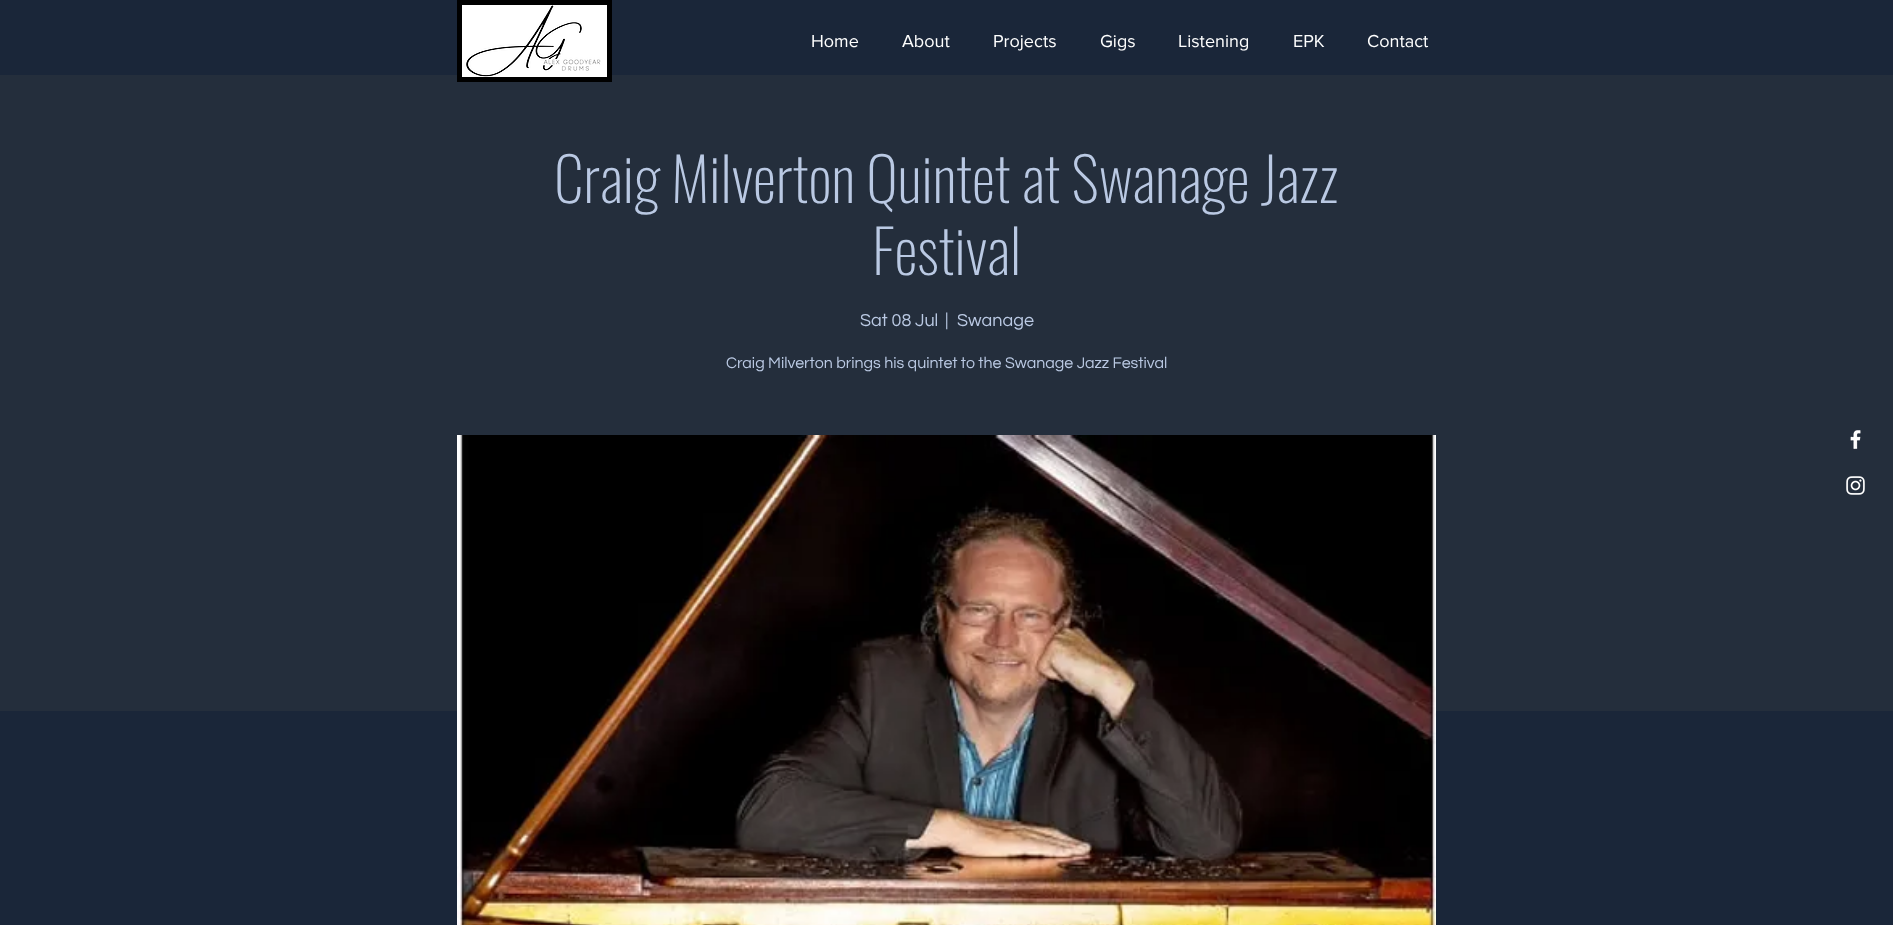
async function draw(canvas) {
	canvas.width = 1893;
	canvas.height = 925;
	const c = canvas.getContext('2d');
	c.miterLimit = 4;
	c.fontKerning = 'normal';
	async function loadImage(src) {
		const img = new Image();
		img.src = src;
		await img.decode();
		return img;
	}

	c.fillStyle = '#1a2639';
	c.fillRect(0, 0, 1893, 925);
	c.fillStyle = '#242e3c';
	c.fillRect(0, 75, 1893, 636);
	c.fillStyle = '#000';
	c.fillRect(457, 0, 155, 82);
	c.drawImage(await loadImage('img1.png'), 462, 5, 145, 72);
	c.font = '18px "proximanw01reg"';
	c.fillStyle = '#fff';
	for (const [text, x, y] of [
		['Home', 811, 47],
		['About', 902, 47],
		['Projects', 993, 47],
		['Gigs', 1100, 47],
		['Listening', 1178, 47],
		['EPK', 1293, 47],
		['Contact', 1367, 47],
	]) {
		c.fillText(text, x, y);
	}
	c.font = '200 60px Oswald';
	c.fillStyle = '#bac9e3';
	c.fillText('Craig Milverton Quintet at Swanage Jazz', 554, 203);
	c.fillText('Festival', 872, 275);
	c.font = '18px Questrial';
	for (const [text, x, y] of [
		['Sat 08 Jul', 860, 326],
		['|', 945, 326],
		['Swanage', 957, 326],
	]) {
		c.fillText(text, x, y);
	}
	c.font = '16px Questrial';
	c.fillText('Craig Milverton brings his quintet to the Swanage Jazz Festival', 726, 368);
	c.drawImage(await loadImage('img2.png'), 457, 435, 979, 490);
	c.drawImage(await loadImage('img3.png'), 1850, 430, 11, 19);
	c.drawImage(await loadImage('img4.png'), 1846, 476, 19, 19);
}

draw(document.querySelector('canvas'));
